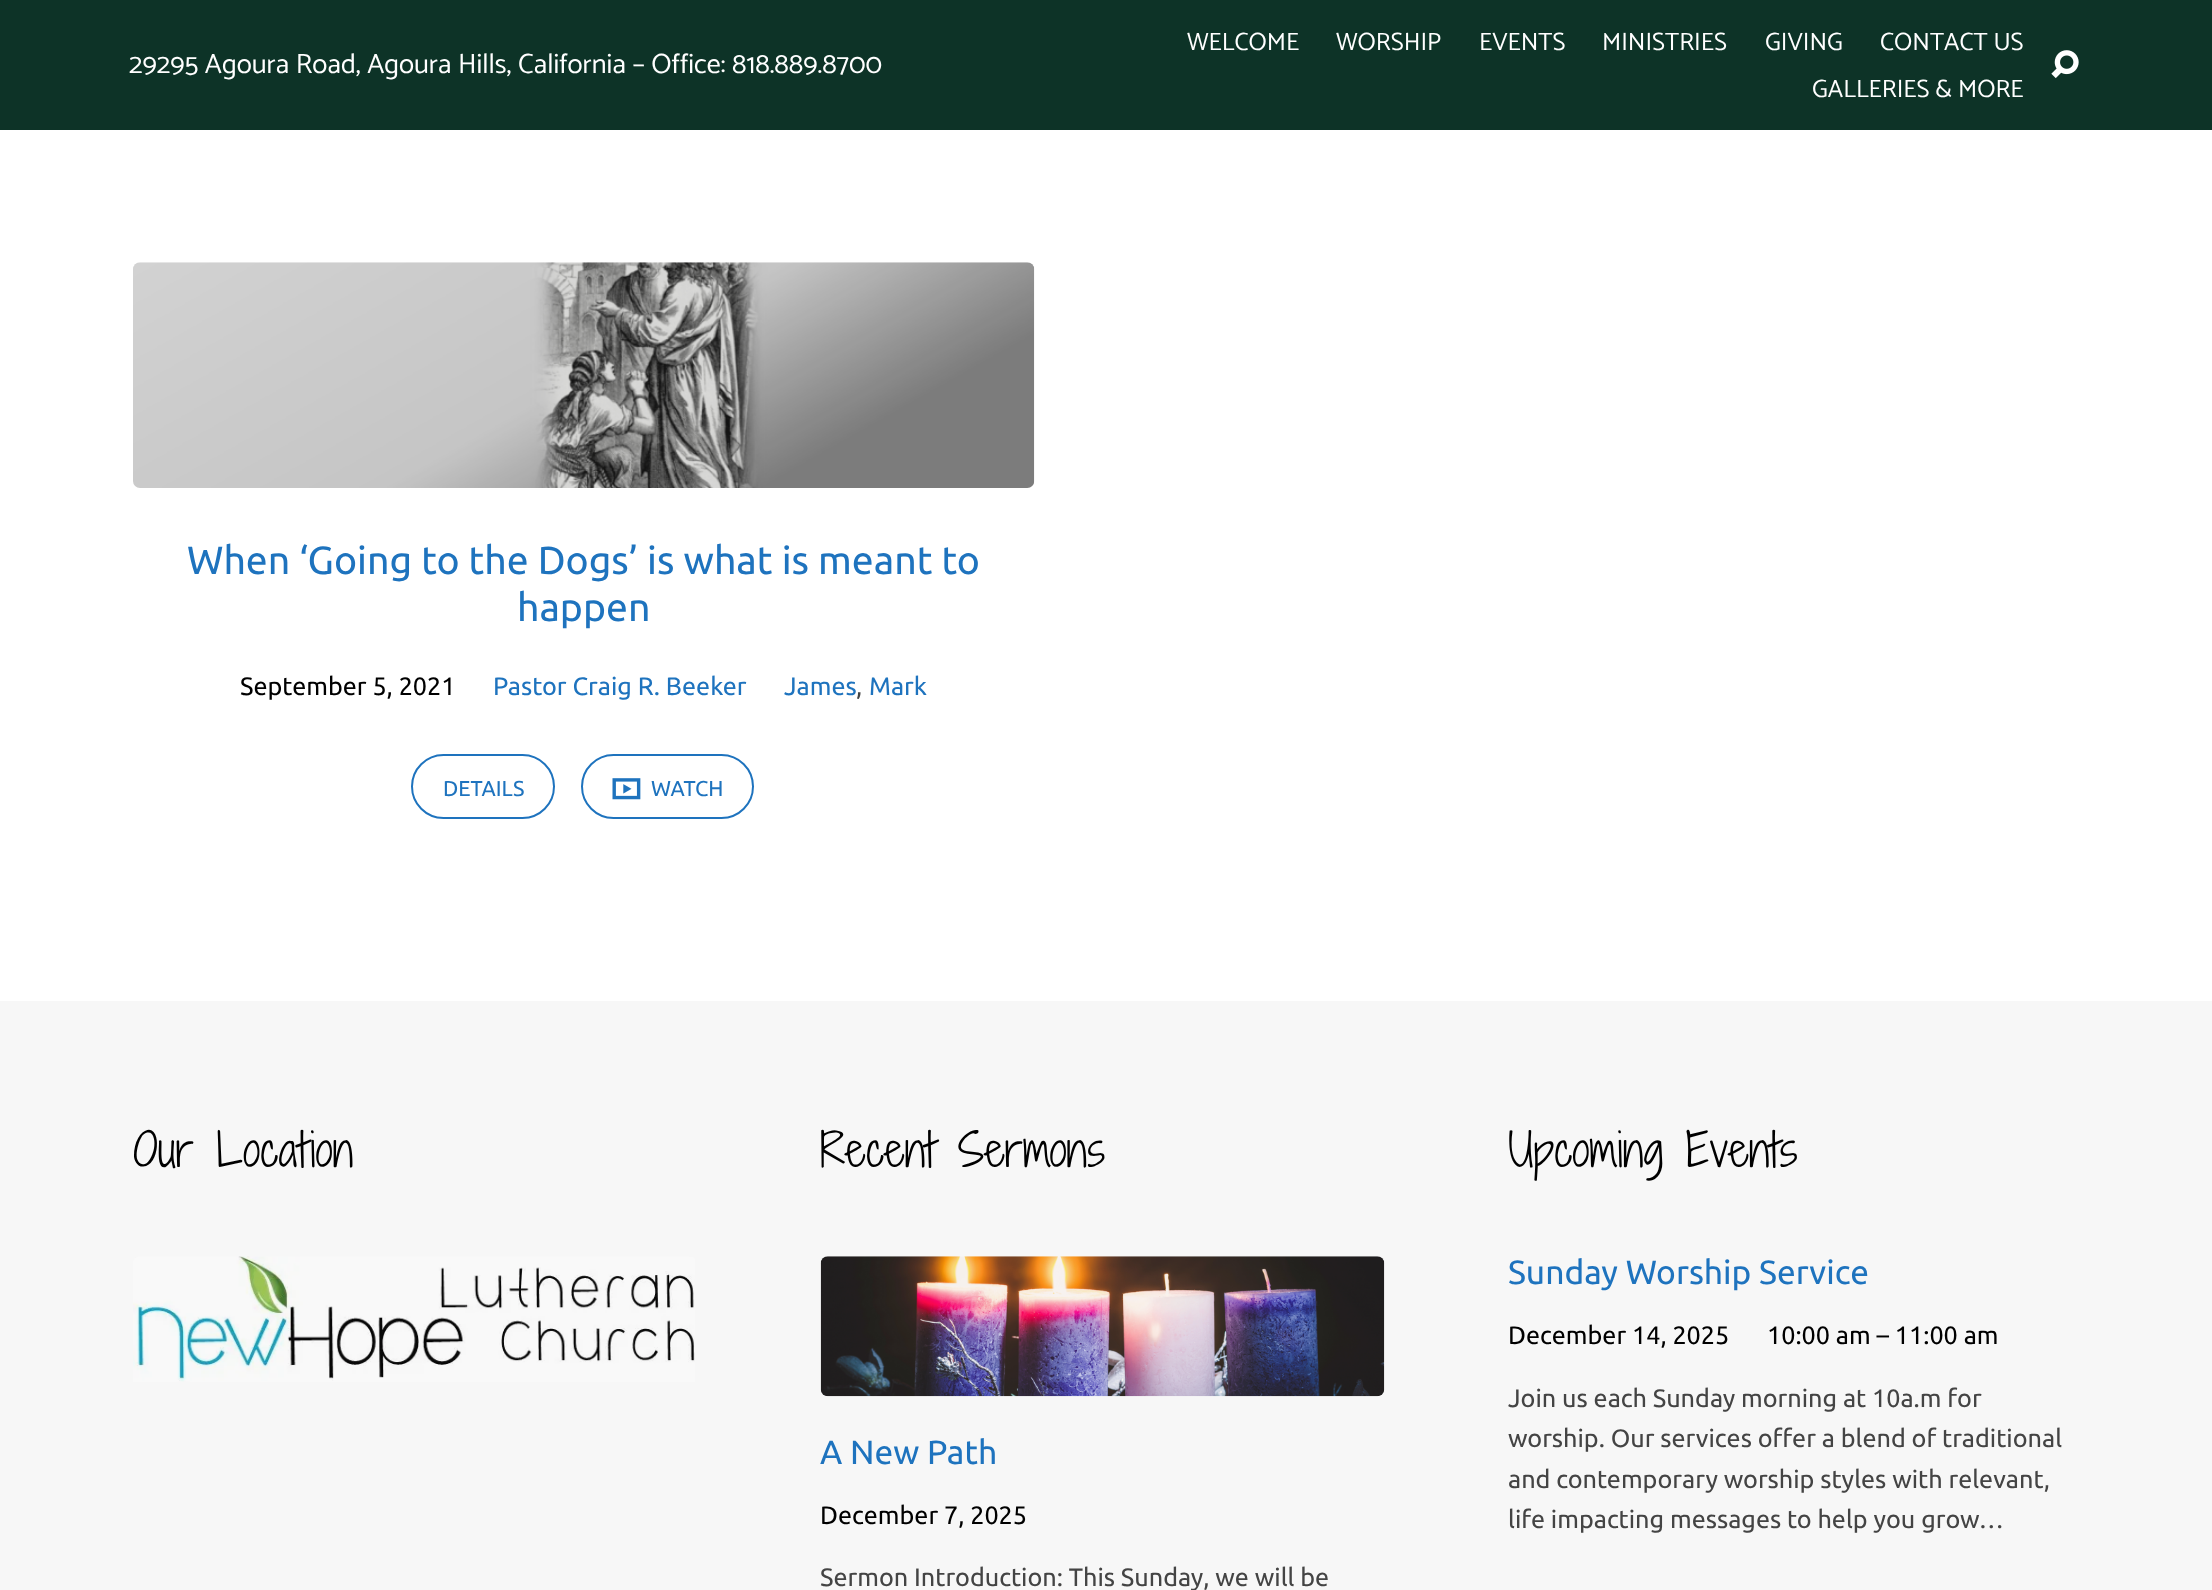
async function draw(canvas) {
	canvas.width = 2212;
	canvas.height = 1590;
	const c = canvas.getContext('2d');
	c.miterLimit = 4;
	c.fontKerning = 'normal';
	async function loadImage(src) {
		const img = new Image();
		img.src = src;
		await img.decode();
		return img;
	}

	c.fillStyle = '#fff';
	c.fillRect(0, 0, 2212, 1590);
	c.fillStyle = '#0d3327';
	c.fillRect(0, 0, 2212, 130);
	c.font = '28px Catamaran';
	c.fillStyle = '#fff';
	c.fillText('29295 Agoura Road, Agoura Hills, California – Office: 818.889.8700', 129, 73);
	c.font = '25.2px Catamaran';
	for (const [text, x, y] of [
		['WELCOME', 1187, 50],
		['WORSHIP', 1336, 50],
		['EVENTS', 1479, 50],
		['MINISTRIES', 1602, 50],
		['GIVING', 1765, 50],
		['CONTACT US', 1880, 50],
		['GALLERIES & MORE', 1812, 97],
	]) {
		c.fillText(text, x, y);
	}
	c.drawImage(await loadImage('img1.png'), 2051, 50, 28, 29);
	c.drawImage(await loadImage('img2.png'), 133, 262, 902, 226);
	c.font = '39.2px Ubuntu';
	c.fillStyle = '#1e73be';
	c.fillText('When ‘Going to the Dogs’ is what is meant to', 187, 574);
	c.fillText('happen', 517, 621);
	c.font = '25.2px Ubuntu';
	c.fillStyle = '#000';
	c.fillText('September 5, 2021', 240, 695);
	c.fillStyle = '#1e73be';
	c.fillText('Pastor Craig R. Beeker', 493, 695);
	c.fillText('James', 784, 695);
	c.fillStyle = '#444';
	c.fillText(',', 856, 695);
	c.fillStyle = '#1e73be';
	c.fillText('Mark', 869, 695);
	c.beginPath();
	c.roundRect(412, 755, 142, 63, 31.5);
	c.strokeStyle = '#1e73be';
	c.lineWidth = 2;
	c.stroke();
	c.font = '21.5px Ubuntu';
	c.fillText('DETAILS', 443, 796);
	c.beginPath();
	c.roundRect(582, 755, 171, 63, 31.5);
	c.stroke();
	c.drawImage(await loadImage('img3.png'), 612, 778, 29, 22);
	c.fillText('WATCH', 651, 796);
	c.fillStyle = '#f7f7f7';
	c.fillRect(0, 1001, 2212, 589);
	c.font = '300 44.75px Shadows Into Light Two';
	c.fillStyle = '#000';
	c.fillText('Our Location', 133, 1167);
	c.drawImage(await loadImage('img4.png'), 133, 1256, 562, 126);
	c.fillText('Recent Sermons', 820, 1167);
	c.drawImage(await loadImage('img5.png'), 820, 1256, 565, 141);
	c.font = '33.6px Ubuntu';
	c.fillStyle = '#1e73be';
	c.fillText('A New Path', 820, 1464);
	c.font = '25.2px Ubuntu';
	c.fillStyle = '#000';
	c.fillText('December 7, 2025', 820, 1524);
	c.fillStyle = '#444';
	c.fillText('Sermon Introduction: This Sunday, we will be', 820, 1586);
	c.font = '300 44.75px Shadows Into Light Two';
	c.fillStyle = '#000';
	c.fillText('Upcoming Events', 1508, 1167);
	c.font = '33.6px Ubuntu';
	c.fillStyle = '#1e73be';
	c.fillText('Sunday Worship Service', 1508, 1284);
	c.font = '25.2px Ubuntu';
	c.fillStyle = '#000';
	c.fillText('December 14, 2025', 1508, 1344);
	c.fillText('10:00 am – 11:00 am', 1767, 1344);
	c.fillStyle = '#444';
	for (const [text, x, y] of [
		['Join us each Sunday morning at 10a.m for', 1508, 1407],
		['worship. Our services offer a blend of traditional', 1508, 1447],
		['and contemporary worship styles with relevant,', 1508, 1488],
		['life impacting messages to help you grow…', 1508, 1528],
	]) {
		c.fillText(text, x, y);
	}
}

draw(document.querySelector('canvas'));
